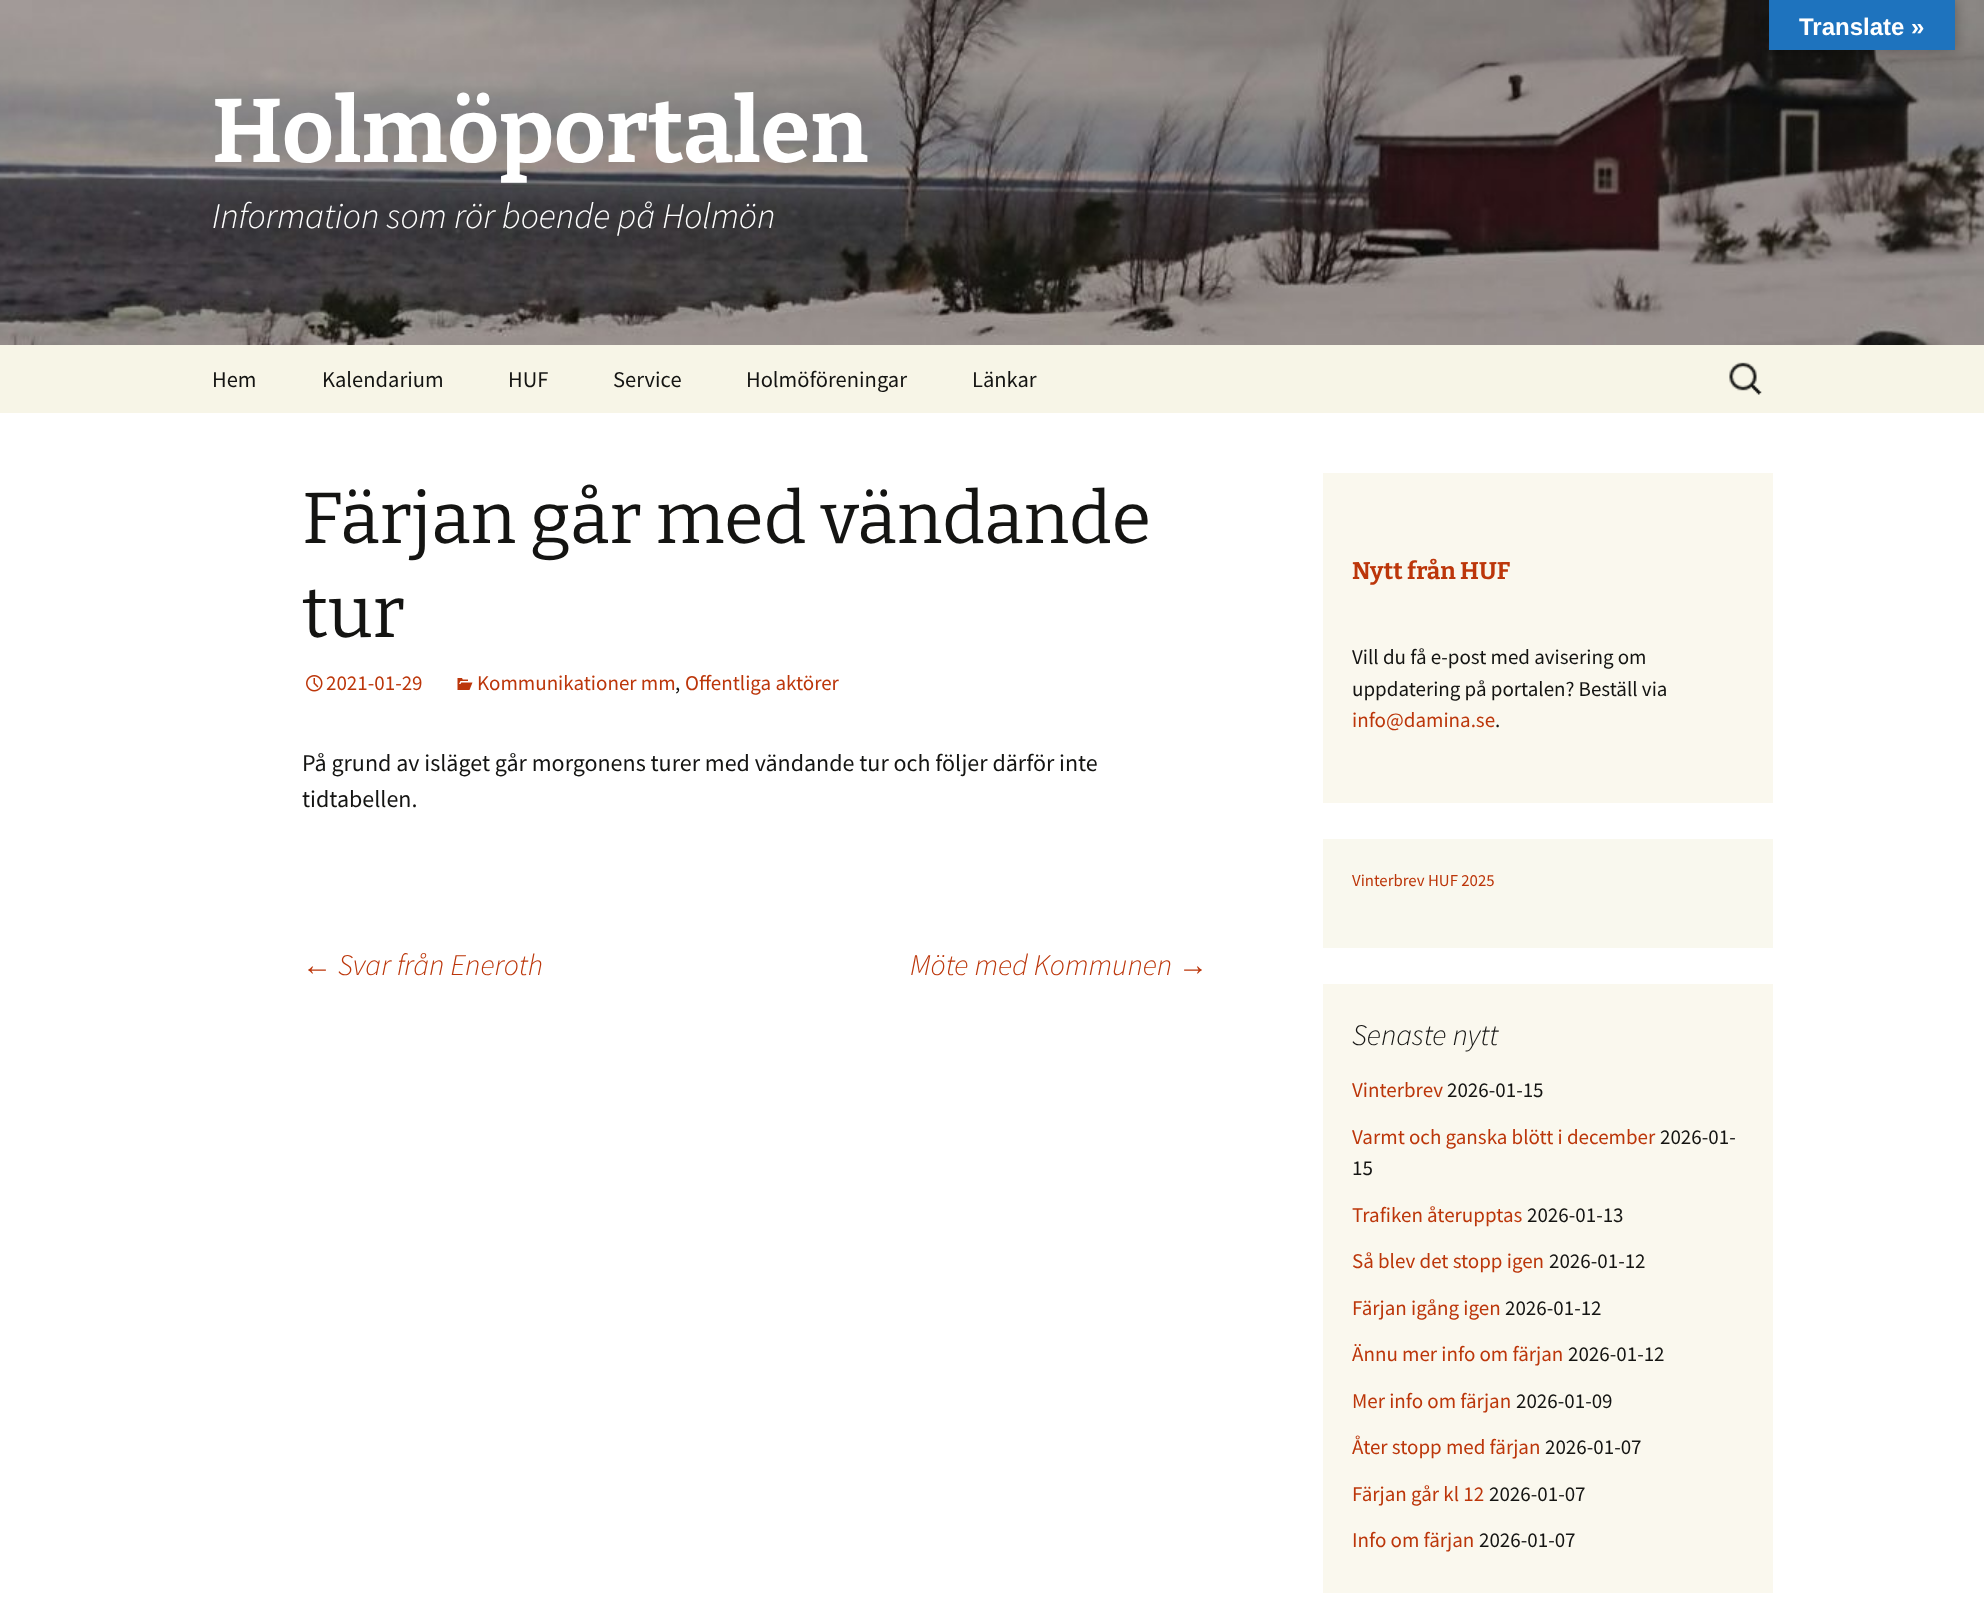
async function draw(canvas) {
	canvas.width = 1984;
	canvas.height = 1622;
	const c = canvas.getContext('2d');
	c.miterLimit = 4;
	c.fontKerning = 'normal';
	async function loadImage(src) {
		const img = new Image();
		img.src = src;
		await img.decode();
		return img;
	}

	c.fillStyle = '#fff';
	c.fillRect(0, 0, 1984, 1622);
	c.drawImage(await loadImage('img1.png'), 0, 0, 1984, 345);
	c.fillStyle = '#0000004d';
	c.filter = 'blur(7px)';
	c.beginPath();
	c.rect(1769, 0, 186, 50);
	c.fill();
	c.filter = 'none';
	c.fillStyle = '#1e73be';
	c.fillRect(1769, 0, 186, 50);
	c.font = 'bold 24px Liberation Sans';
	c.fillStyle = '#fff';
	c.fillText('Translate »', 1799, 35);
	c.font = '100 90px Bitter';
	c.fillText('Holmöportalen', 212, 162);
	c.font = 'italic 300 36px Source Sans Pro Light';
	c.fillText('Information som rör boende på Holmön', 212, 228);
	c.fillStyle = '#f7f5e7';
	c.fillRect(0, 345, 1984, 68);
	c.font = '22.5px Source Sans Pro';
	c.fillStyle = '#141412';
	for (const [text, x, y] of [
		['Hem', 212, 387],
		['Kalendarium', 322, 387],
		['HUF', 508, 387],
		['Service', 613, 387],
		['Holmöföreningar', 746, 387],
		['Länkar', 972, 387],
	]) {
		c.fillText(text, x, y);
	}
	c.drawImage(await loadImage('img2.png'), 1729, 362, 33, 33);
	c.font = '100 72px "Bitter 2"';
	c.fillText('Färjan går med vändande', 302, 543);
	c.fillText('tur', 302, 637);
	c.drawImage(await loadImage('img3.png'), 306, 675, 17, 17);
	c.font = '21px Source Sans Pro';
	c.fillStyle = '#bc360a';
	c.fillText('2021-01-29', 326, 690);
	c.drawImage(await loadImage('img4.png'), 457, 678, 16, 12);
	c.fillText('Kommunikationer mm', 477, 690);
	c.fillStyle = '#141412';
	c.fillText(',', 675, 690);
	c.fillStyle = '#bc360a';
	c.fillText('Offentliga aktörer', 685, 690);
	c.font = '24px Source Sans Pro';
	c.fillStyle = '#141412';
	c.fillText('På grund av isläget går morgonens turer med vändande tur och följer därför inte', 302, 771);
	c.fillText('tidtabellen.', 302, 807);
	c.font = 'italic 30px Liberation Sans';
	c.fillStyle = '#bc360a';
	c.fillText('←', 302, 975);
	c.font = 'italic 300 30px Source Sans Pro Light';
	c.fillText('Svar från Eneroth', 338, 975);
	c.fillText('Möte med Kommunen', 910, 975);
	c.font = 'italic 30px Liberation Sans';
	c.fillText('→', 1178, 975);
	c.fillStyle = '#faf8ee';
	c.fillRect(1323, 473, 450, 330);
	c.font = '100 24px Bitter';
	c.fillStyle = '#bc360a';
	c.fillText('Nytt från HUF', 1352, 579);
	c.font = '21px Source Sans Pro';
	c.fillStyle = '#141412';
	c.fillText('Vill du få e-post med avisering om', 1352, 664);
	c.fillText('uppdatering på portalen? Beställ via', 1352, 696);
	c.fillStyle = '#bc360a';
	c.fillText('info@damina.se', 1352, 727);
	c.fillStyle = '#141412';
	c.fillText('.', 1495, 727);
	c.fillStyle = '#f9f8ee';
	c.fillRect(1323, 839, 450, 109);
	c.font = '16.75px Source Sans Pro';
	c.fillStyle = '#bc360a';
	c.fillText('Vinterbrev HUF 2025', 1352, 886);
	c.fillStyle = '#faf8ee';
	c.fillRect(1323, 984, 450, 609);
	c.font = 'italic 300 30px Source Sans Pro Light';
	c.fillStyle = '#141412';
	c.fillText('Senaste nytt', 1352, 1045);
	c.font = '21px Source Sans Pro';
	c.fillStyle = '#bc360a';
	c.fillText('Vinterbrev', 1352, 1097);
	c.fillStyle = '#141412';
	c.fillText('2026-01-15', 1447, 1097);
	c.fillStyle = '#bc360a';
	c.fillText('Varmt och ganska blött i december', 1352, 1144);
	c.fillStyle = '#141412';
	c.fillText('2026-01-', 1660, 1144);
	c.fillText('15', 1352, 1175);
	c.fillStyle = '#bc360a';
	c.fillText('Trafiken återupptas', 1352, 1222);
	c.fillStyle = '#141412';
	c.fillText('2026-01-13', 1527, 1222);
	c.fillStyle = '#bc360a';
	c.fillText('Så blev det stopp igen', 1352, 1268);
	c.fillStyle = '#141412';
	c.fillText('2026-01-12', 1549, 1268);
	c.fillStyle = '#bc360a';
	c.fillText('Färjan igång igen', 1352, 1315);
	c.fillStyle = '#141412';
	c.fillText('2026-01-12', 1505, 1315);
	c.fillStyle = '#bc360a';
	c.fillText('Ännu mer info om färjan', 1352, 1361);
	c.fillStyle = '#141412';
	c.fillText('2026-01-12', 1568, 1361);
	c.fillStyle = '#bc360a';
	c.fillText('Mer info om färjan', 1352, 1408);
	c.fillStyle = '#141412';
	c.fillText('2026-01-09', 1516, 1408);
	c.fillStyle = '#bc360a';
	c.fillText('Åter stopp med färjan', 1352, 1454);
	c.fillStyle = '#141412';
	c.fillText('2026-01-07', 1545, 1454);
	c.fillStyle = '#bc360a';
	c.fillText('Färjan går kl 12', 1352, 1501);
	c.fillStyle = '#141412';
	c.fillText('2026-01-07', 1489, 1501);
	c.fillStyle = '#bc360a';
	c.fillText('Info om färjan', 1352, 1547);
	c.fillStyle = '#141412';
	c.fillText('2026-01-07', 1479, 1547);
}

draw(document.querySelector('canvas'));
